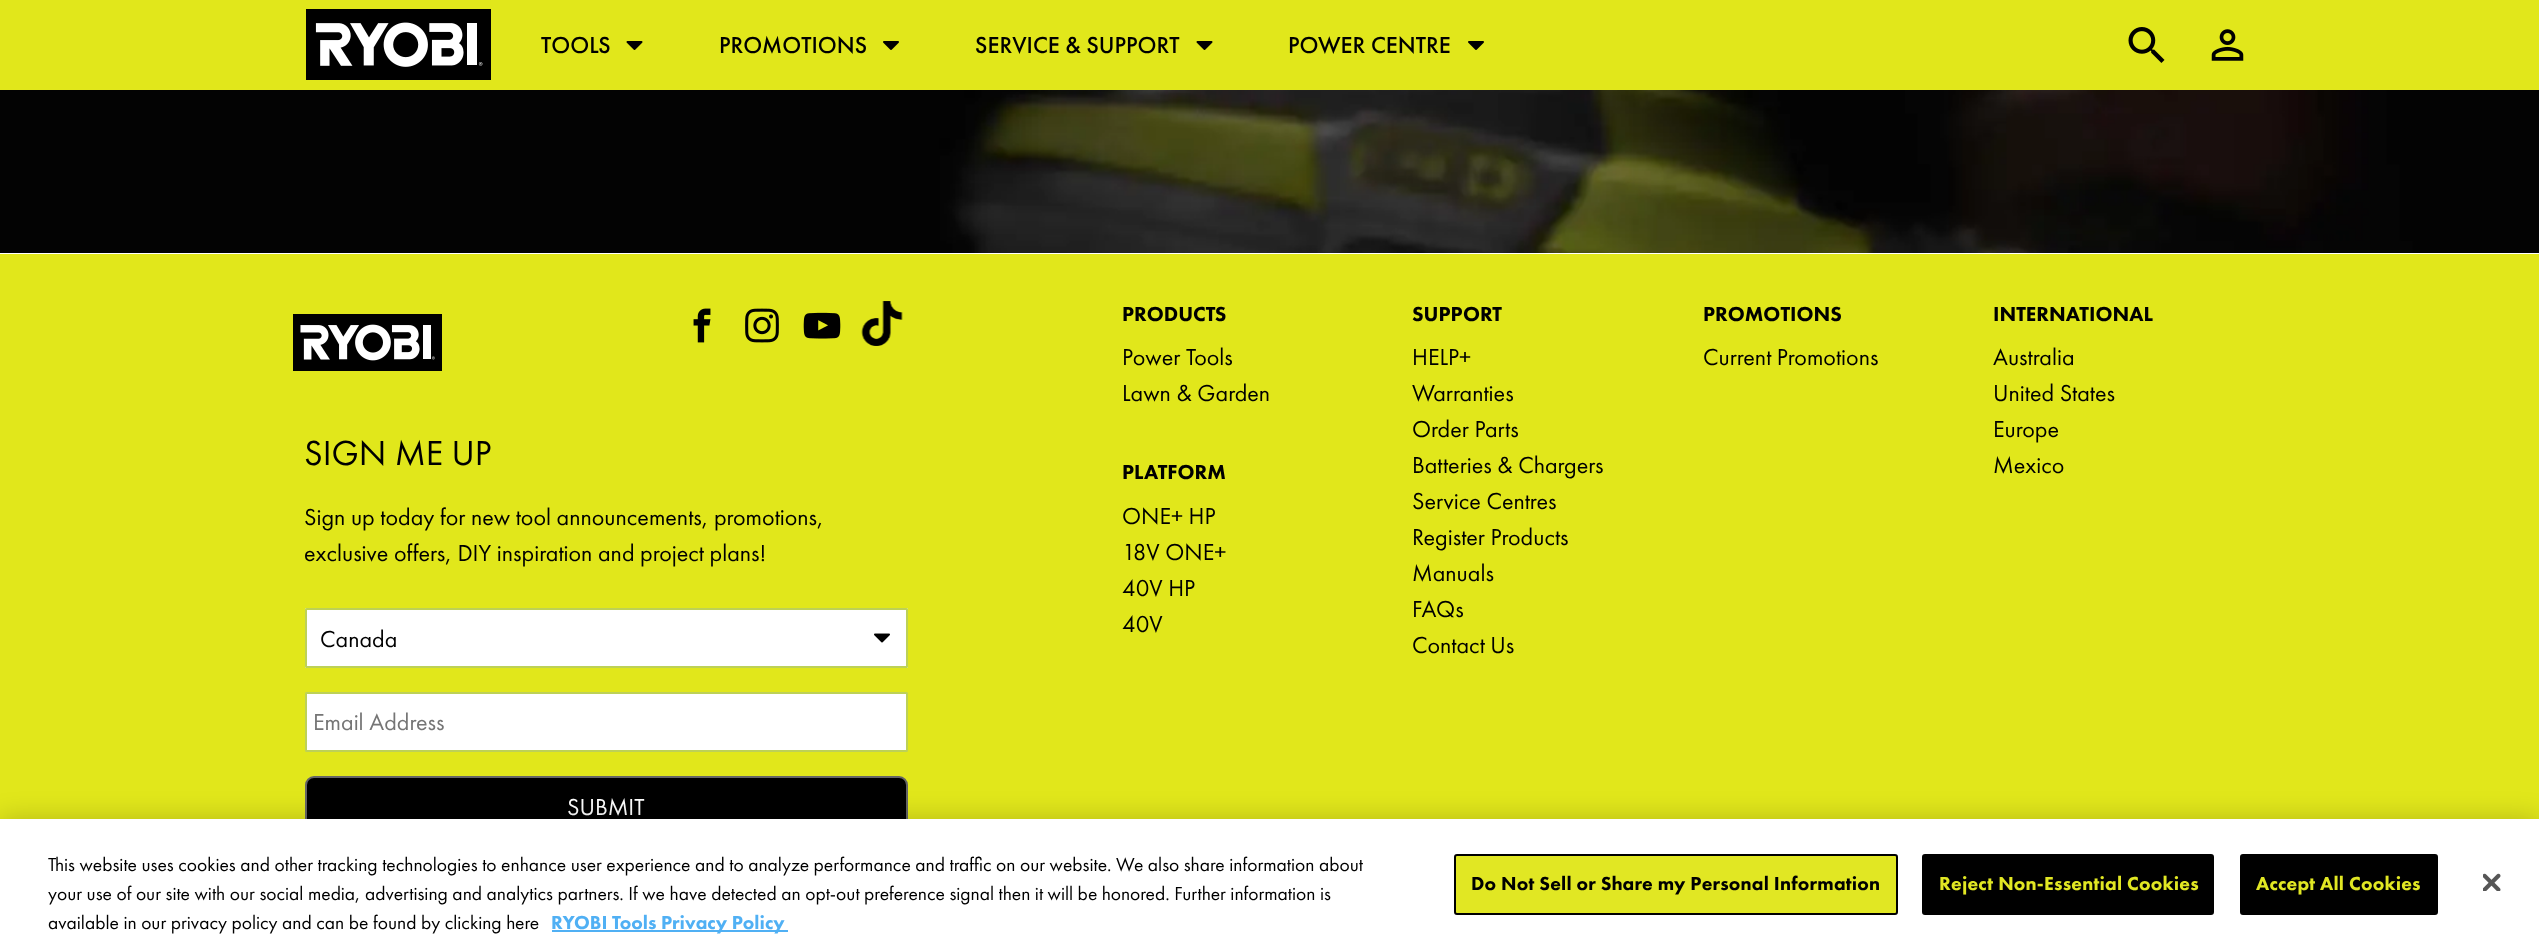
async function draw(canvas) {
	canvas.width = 2539;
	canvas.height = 952;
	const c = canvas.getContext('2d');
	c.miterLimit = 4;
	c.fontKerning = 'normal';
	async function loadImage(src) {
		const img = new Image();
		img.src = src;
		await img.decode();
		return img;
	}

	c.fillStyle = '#fff';
	c.fillRect(0, 0, 2539, 952);
	c.fillStyle = '#e1e71b';
	c.fillRect(0, 0, 2539, 90);
	c.drawImage(await loadImage('img1.png'), 306, 9, 185, 71);
	c.font = '500 24px Futura PT';
	c.fillStyle = '#000';
	c.fillText('TOOLS', 541, 53);
	c.drawImage(await loadImage('img2.png'), 626, 41, 17, 9);
	c.fillText('PROMOTIONS', 719, 53);
	c.drawImage(await loadImage('img3.png'), 883, 41, 16, 9);
	c.fillText('SERVICE & SUPPORT', 975, 53);
	c.drawImage(await loadImage('img2.png'), 1196, 41, 17, 9);
	c.fillText('POWER CENTRE', 1288, 53);
	c.drawImage(await loadImage('img3.png'), 1468, 41, 16, 9);
	c.drawImage(await loadImage('img4.png'), 2128, 27, 37, 36);
	c.drawImage(await loadImage('img5.png'), 2211, 29, 33, 32);
	c.drawImage(await loadImage('img6.png'), 0, 90, 2539, 163);
	c.fillStyle = '#e1e71b';
	c.fillRect(0, 254, 2539, 565);
	c.drawImage(await loadImage('img7.png'), 293, 314, 149, 57);
	c.drawImage(await loadImage('img8.png'), 693, 308, 18, 35);
	c.drawImage(await loadImage('img9.png'), 745, 308, 34, 35);
	c.drawImage(await loadImage('img10.png'), 803, 312, 38, 27);
	c.drawImage(await loadImage('img11.png'), 861, 301, 42, 45);
	c.font = '36px Futura PT';
	c.fillStyle = '#000';
	c.fillText('SIGN ME UP', 304, 465);
	c.font = '24px Futura PT';
	c.fillText('Sign up today for new tool announcements, promotions,', 304, 525);
	c.fillText('exclusive offers, DIY inspiration and project plans!', 304, 561);
	c.fillStyle = '#fff';
	c.beginPath();
	c.roundRect(305, 608, 603, 60, 1.5);
	c.fill();
	c.drawImage(await loadImage('img12.png'), 874, 633, 16, 10);
	c.beginPath();
	c.roundRect(306, 609, 601, 58, 0.5);
	c.strokeStyle = '#bdd157';
	c.lineWidth = 2;
	c.stroke();
	c.fillStyle = '#000';
	c.fillText('Canada', 320, 647);
	c.fillStyle = '#fff';
	c.beginPath();
	c.roundRect(306, 693, 601, 58, 0.5);
	c.fill();
	c.stroke();
	c.fillStyle = '#757575';
	c.fillText('Email Address', 313, 730);
	c.fillStyle = '#000';
	c.beginPath();
	c.roundRect(306, 777, 601, 61, 8);
	c.fill();
	c.strokeStyle = '#666';
	c.stroke();
	c.fillStyle = '#fff';
	c.fillText('SUBMIT', 567, 815);
	c.font = '900 21px Futura PT';
	c.fillStyle = '#000';
	c.fillText('PRODUCTS', 1122, 321);
	c.font = '24px Futura PT';
	c.fillText('Power Tools', 1122, 365);
	c.fillText('Lawn & Garden', 1122, 401);
	c.font = '900 21px Futura PT';
	c.fillText('PLATFORM', 1122, 479);
	c.font = '24px Futura PT';
	for (const [text, x, y] of [
		['ONE+ HP', 1122, 524],
		['18V ONE+', 1122, 560],
		['40V HP', 1122, 596],
		['40V', 1122, 632],
	]) {
		c.fillText(text, x, y);
	}
	c.font = '900 21px Futura PT';
	c.fillText('SUPPORT', 1412, 321);
	c.font = '24px Futura PT';
	for (const [text, x, y] of [
		['HELP+', 1412, 365],
		['Warranties', 1412, 401],
		['Order Parts', 1412, 437],
		['Batteries & Chargers', 1412, 473],
		['Service Centres', 1412, 509],
		['Register Products', 1412, 545],
		['Manuals', 1412, 581],
		['FAQs', 1412, 617],
		['Contact Us', 1412, 653],
	]) {
		c.fillText(text, x, y);
	}
	c.font = '900 21px Futura PT';
	c.fillText('PROMOTIONS', 1703, 321);
	c.font = '24px Futura PT';
	c.fillText('Current Promotions', 1703, 365);
	c.font = '900 21px Futura PT';
	c.fillText('INTERNATIONAL', 1993, 321);
	c.font = '24px Futura PT';
	for (const [text, x, y] of [
		['Australia', 1993, 365],
		['United States', 1993, 401],
		['Europe', 1993, 437],
		['Mexico', 1993, 473],
	]) {
		c.fillText(text, x, y);
	}
	c.fillStyle = '#00000033';
	c.filter = 'blur(13.5px)';
	c.beginPath();
	c.rect(0, 819, 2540, 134);
	c.fill();
	c.filter = 'none';
	c.fillStyle = '#fff';
	c.fillRect(0, 819, 2539, 133);
	c.font = '19.5px Futura PT';
	c.fillStyle = '#000';
	for (const [text, x, y] of [
		['This website uses cookies and other tracking technologies to enhance user experience and to analyze performance and traffic on our website. We also share information about', 48, 871],
		['your use of our site with our social media, advertising and analytics partners. If we have detected an opt-out preference signal then it will be honored. Further information is', 48, 900],
		['available in our privacy policy and can be found by clicking here', 48, 929],
	]) {
		c.fillText(text, x, y);
	}
	c.fillStyle = '#50b0f4';
	c.fillRect(552, 930, 236, 2);
	c.font = '900 19.5px Futura PT';
	c.fillText('RYOBI Tools Privacy Policy', 551, 929);
	c.fillStyle = '#e1e723';
	c.beginPath();
	c.roundRect(1455, 855, 442, 59, 2);
	c.fill();
	c.strokeStyle = '#000';
	c.stroke();
	c.letterSpacing = '0.2px';
	c.fillStyle = '#000';
	c.fillText('Do Not Sell or Share my Personal Information', 1471, 890);
	c.beginPath();
	c.roundRect(1923, 855, 290, 59, 2);
	c.fill();
	c.stroke();
	c.fillStyle = '#e1e723';
	c.fillText('Reject Non-Essential Cookies', 1939, 890);
	c.fillStyle = '#000';
	c.beginPath();
	c.roundRect(2241, 855, 196, 59, 2);
	c.fill();
	c.stroke();
	c.fillStyle = '#e1e723';
	c.fillText('Accept All Cookies', 2256, 890);
	c.drawImage(await loadImage('img13.png'), 2483, 873, 18, 18);
}

draw(document.querySelector('canvas'));
